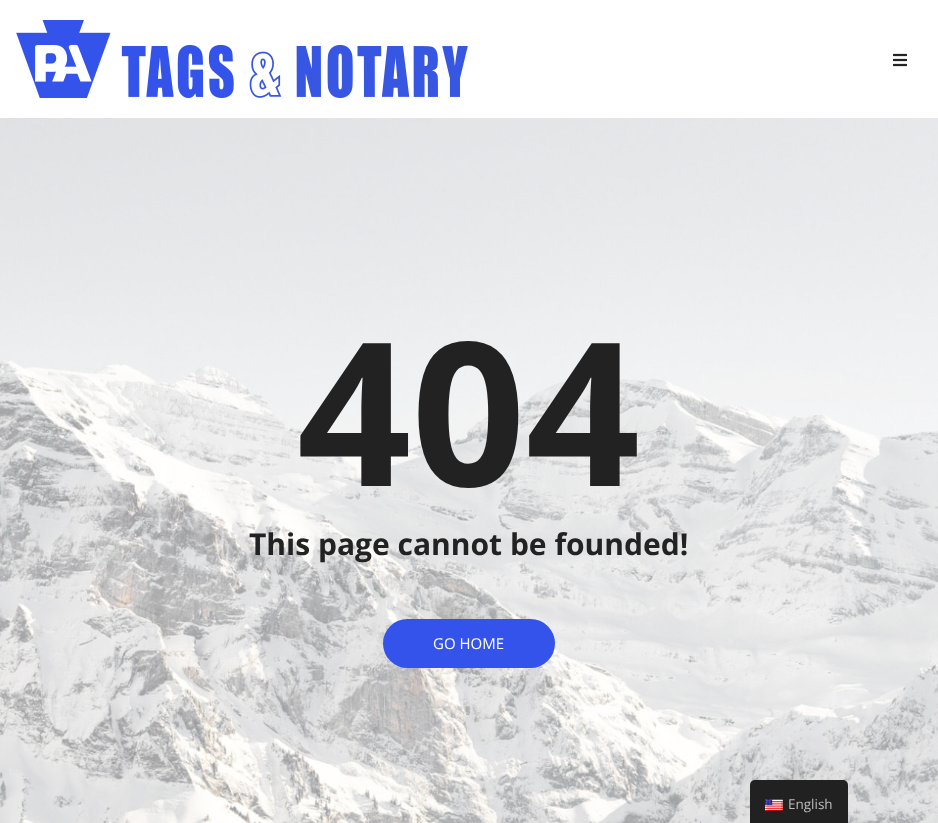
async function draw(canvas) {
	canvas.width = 938;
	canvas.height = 823;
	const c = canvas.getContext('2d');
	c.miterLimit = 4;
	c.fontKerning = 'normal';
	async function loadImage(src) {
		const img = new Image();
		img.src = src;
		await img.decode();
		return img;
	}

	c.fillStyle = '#fff';
	c.fillRect(0, 0, 938, 823);
	c.drawImage(await loadImage('img1.png'), 16, 20, 452, 78);
	c.drawImage(await loadImage('img2.png'), 893, 53, 14, 14);
	c.drawImage(await loadImage('img3.png'), 0, 118, 938, 705);
	c.font = 'bold 200px Open Sans';
	c.fillStyle = '#222';
	c.fillText('404', 297, 486);
	c.font = 'bold 30px Open Sans';
	c.fillText('This page cannot be founded!', 249, 555);
	c.fillStyle = '#3353ea';
	c.beginPath();
	c.roundRect(383, 619, 172, 49, 24.5);
	c.fill();
	c.font = '15px Open Sans';
	c.fillStyle = '#fff';
	c.fillText('GO HOME', 433, 649);
	c.fillStyle = '#212121';
	c.beginPath();
	c.roundRect(750, 780, 98, 43, [5, 5, 0, 0]);
	c.fill();
	c.drawImage(await loadImage('img4.png'), 765, 799, 18, 12);
	c.font = '13.5px Open Sans';
	c.fillStyle = '#bdbdbd';
	c.fillText('English', 788, 809);
}

draw(document.querySelector('canvas'));
